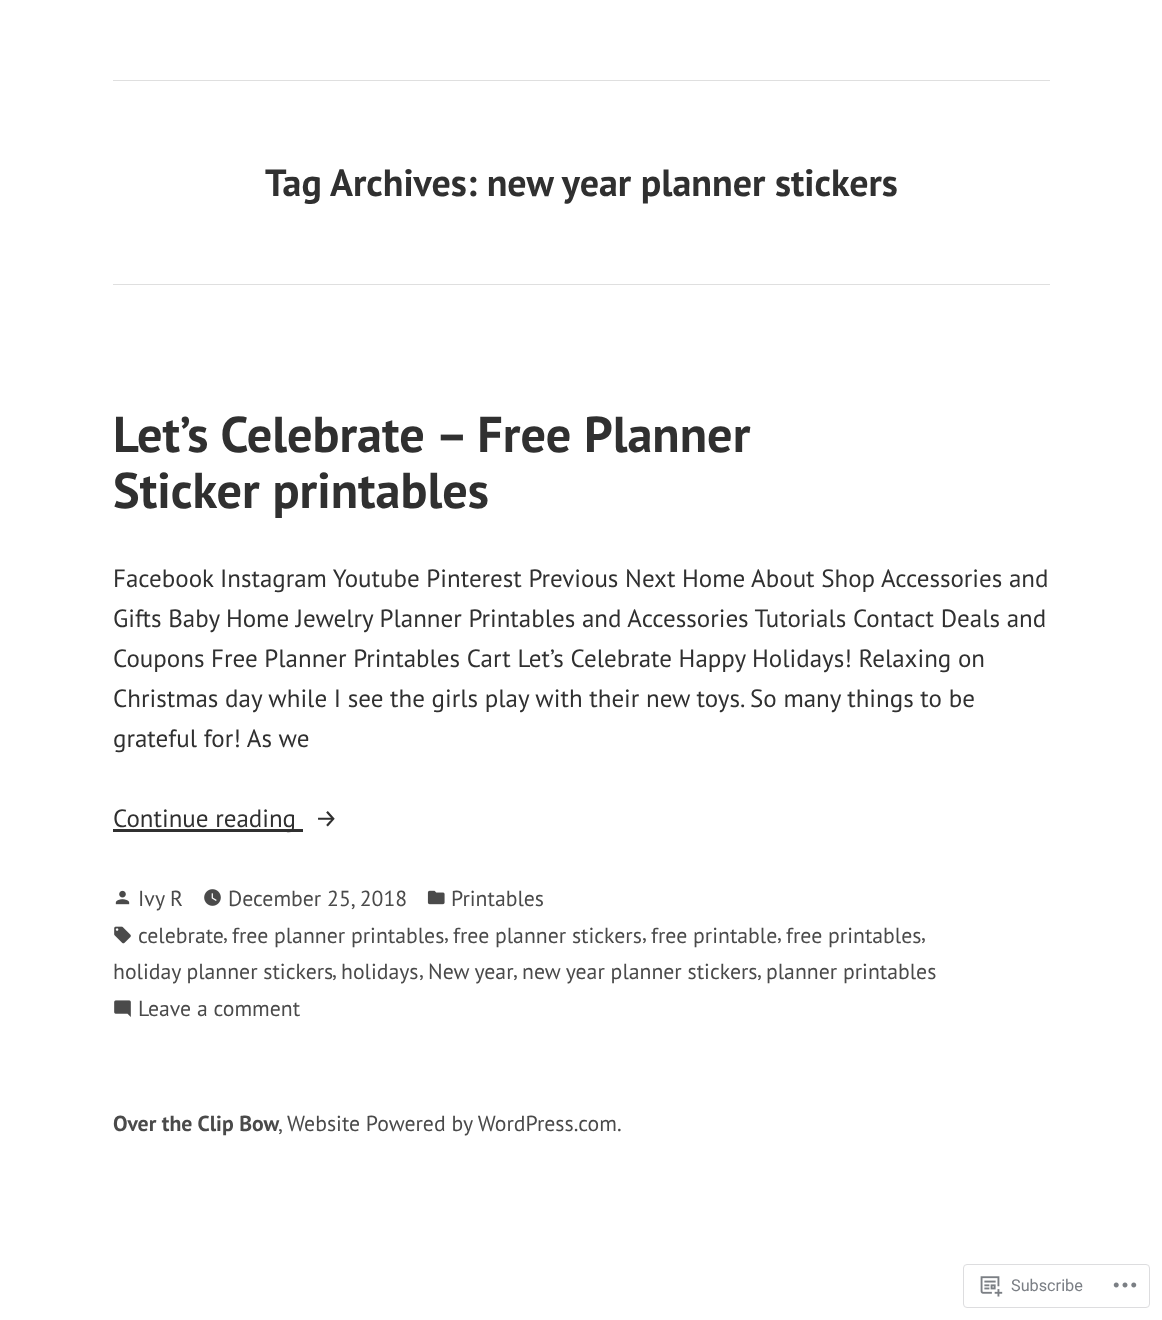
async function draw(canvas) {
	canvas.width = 1162;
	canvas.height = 1320;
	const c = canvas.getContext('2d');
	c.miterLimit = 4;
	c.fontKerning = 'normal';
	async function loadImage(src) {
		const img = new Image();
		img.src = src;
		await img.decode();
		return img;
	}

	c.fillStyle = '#fff';
	c.fillRect(0, 0, 1162, 1320);
	c.fillStyle = '#dfdfdf';
	c.fillRect(113, 80, 937, 1);
	c.font = 'bold 38px PT Sans';
	c.fillStyle = '#303030';
	c.fillText('Tag Archives: new year planner stickers', 265, 196);
	c.fillStyle = '#dfdfdf';
	c.fillRect(113, 284, 937, 1);
	c.font = 'bold 50.25px PT Sans';
	c.fillStyle = '#303030';
	c.fillText('Let’s Celebrate – Free Planner', 113, 452);
	c.fillText('Sticker printables', 113, 508);
	c.font = '25px PT Sans';
	for (const [text, x, y] of [
		['Facebook Instagram Youtube Pinterest Previous Next Home About Shop Accessories and', 113, 587],
		['Gifts Baby Home Jewelry Planner Printables and Accessories Tutorials Contact Deals and', 113, 627],
		['Coupons Free Planner Printables Cart Let’s Celebrate Happy Holidays! Relaxing on', 113, 667],
		['Christmas day while I see the girls play with their new toys. So many things to be', 113, 707],
		['grateful for! As we', 113, 747],
	]) {
		c.fillText(text, x, y);
	}
	c.fillRect(113, 829, 190, 3);
	c.fillText('Continue reading', 113, 827);
	c.font = '25px Fira Sans';
	c.fillText('→', 315, 827);
	c.drawImage(await loadImage('img1.png'), 115, 890, 15, 15);
	c.font = '21.75px PT Sans';
	c.fillStyle = '#4a4a4a';
	c.fillText('Ivy R', 138, 906);
	c.drawImage(await loadImage('img2.png'), 204, 889, 17, 17);
	c.fillText('December 25, 2018', 228, 906);
	c.drawImage(await loadImage('img3.png'), 427, 890, 18, 15);
	c.fillText('Printables', 451, 906);
	c.drawImage(await loadImage('img4.png'), 114, 926, 17, 18);
	for (const [text, x, y] of [
		['celebrate', 138, 943],
		[',', 223, 940],
		['free planner printables', 232, 943],
		[',', 444, 940],
		['free planner stickers', 453, 943],
		[',', 642, 940],
		['free printable', 651, 943],
		[',', 777, 940],
		['free printables', 786, 943],
		[',', 921, 940],
		['holiday planner stickers', 113, 979],
		[',', 332, 977],
		['holidays', 341, 979],
		[',', 419, 977],
		['New year', 428, 979],
		[',', 513, 977],
		['new year planner stickers', 522, 979],
		[',', 757, 977],
		['planner printables', 766, 979],
	]) {
		c.fillText(text, x, y);
	}
	c.drawImage(await loadImage('img5.png'), 114, 1000, 17, 17);
	c.fillText('Leave a comment', 138, 1016);
	c.font = 'bold 21.75px PT Sans';
	c.fillText('Over the Clip Bow', 113, 1131);
	c.font = '21.75px PT Sans';
	for (const [text, x, y] of [
		[',', 278, 1131],
		['Website Powered by WordPress.com', 287, 1131],
		['.', 617, 1131],
	]) {
		c.fillText(text, x, y);
	}
	c.beginPath();
	c.roundRect(963.5, 1264.5, 186, 43, 3.5);
	c.strokeStyle = '#dddddf';
	c.stroke();
	c.drawImage(await loadImage('img6.png'), 980, 1276, 23, 21);
	c.font = '16.25px Roboto';
	c.fillStyle = '#7b7f85';
	c.fillText('Subscribe', 1011, 1291);
	c.drawImage(await loadImage('img7.png'), 1113, 1282, 24, 6);
}

draw(document.querySelector('canvas'));
